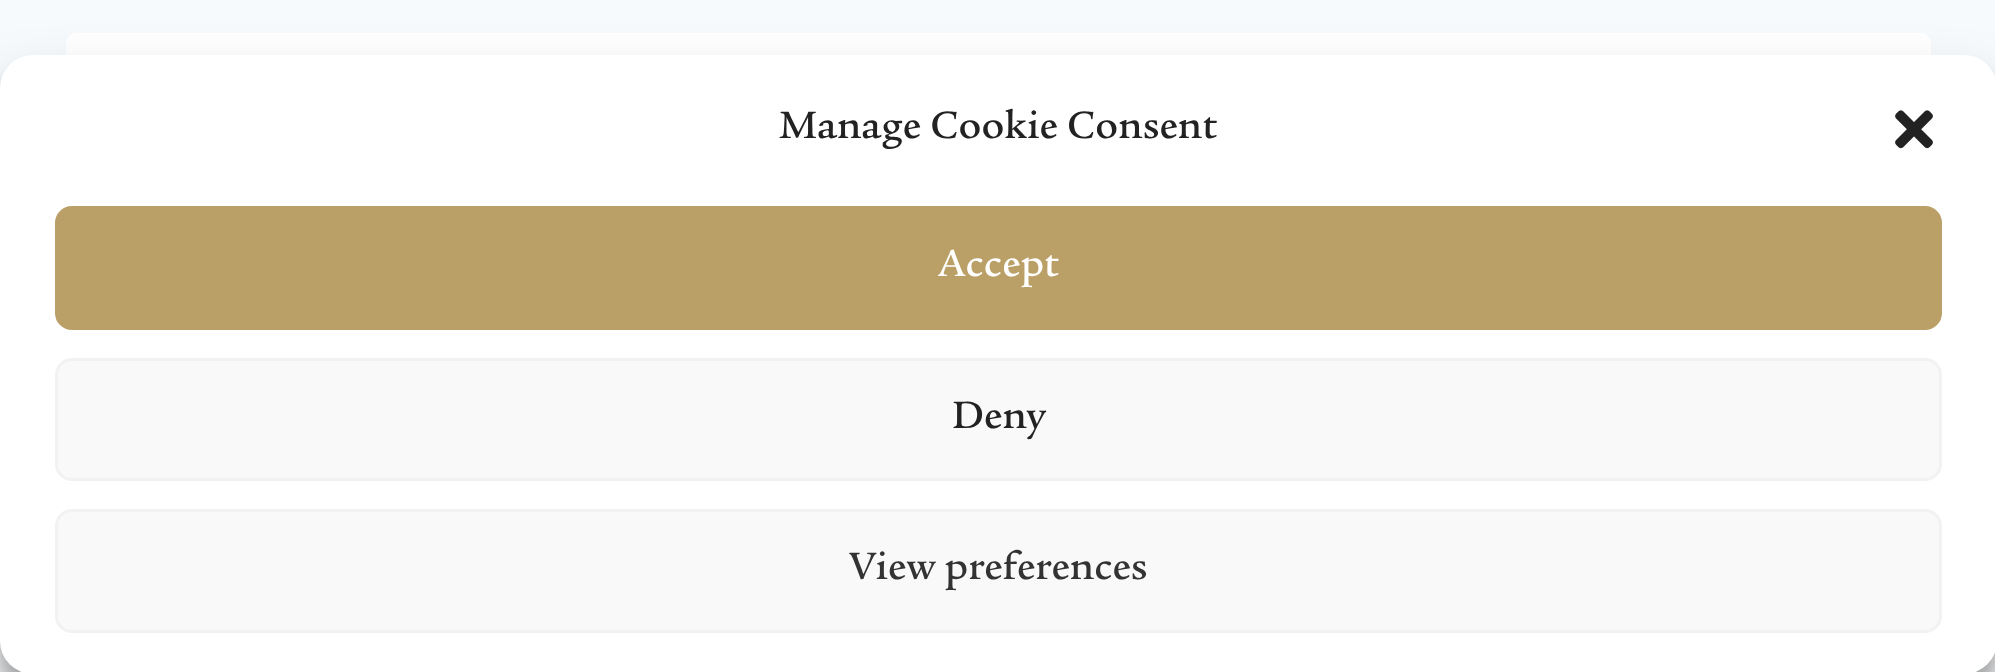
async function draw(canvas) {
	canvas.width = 1995;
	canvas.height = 672;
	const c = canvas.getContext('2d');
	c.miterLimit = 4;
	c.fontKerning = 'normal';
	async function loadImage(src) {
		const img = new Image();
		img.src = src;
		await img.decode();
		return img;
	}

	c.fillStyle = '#f7fafc';
	c.fillRect(0, 0, 1995, 672);
	c.fillStyle = '#fff';
	c.beginPath();
	c.roundRect(66, 33, 1865, 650, 11);
	c.fill();
	c.fillStyle = '#0000003b';
	c.filter = 'blur(8px)';
	c.beginPath();
	c.roundRect(0, 72, 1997, 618, 33);
	c.fill();
	c.filter = 'none';
	c.fillStyle = '#00000030';
	c.filter = 'blur(27.5px)';
	c.beginPath();
	c.roundRect(0, 83, 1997, 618, 33);
	c.fill();
	c.filter = 'none';
	c.fillStyle = '#fff';
	c.beginPath();
	c.roundRect(0, 55, 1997, 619, 33);
	c.fill();
	c.font = '500 41.25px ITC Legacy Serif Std';
	c.fillStyle = '#222';
	c.fillText('Manage Cookie Consent', 779, 138);
	c.drawImage(await loadImage('img1.png'), 1895, 110, 38, 39);
	c.fillStyle = '#ba9f67';
	c.beginPath();
	c.roundRect(56.5, 207.5, 1884, 121, 15.5);
	c.fill();
	c.strokeStyle = '#ba9f67';
	c.lineWidth = 3;
	c.stroke();
	c.fillStyle = '#fff';
	c.fillText('Accept', 938, 276);
	c.fillStyle = '#f9f9f9';
	c.beginPath();
	c.roundRect(56.5, 359.5, 1884, 120, 15.5);
	c.fill();
	c.strokeStyle = '#f2f2f2';
	c.stroke();
	c.fillStyle = '#222';
	c.fillText('Deny', 952, 428);
	c.fillStyle = '#f9f9f9';
	c.beginPath();
	c.roundRect(56.5, 510.5, 1884, 121, 15.5);
	c.fill();
	c.stroke();
	c.fillStyle = '#333';
	c.fillText('View preferences', 849, 579);
}

draw(document.querySelector('canvas'));
